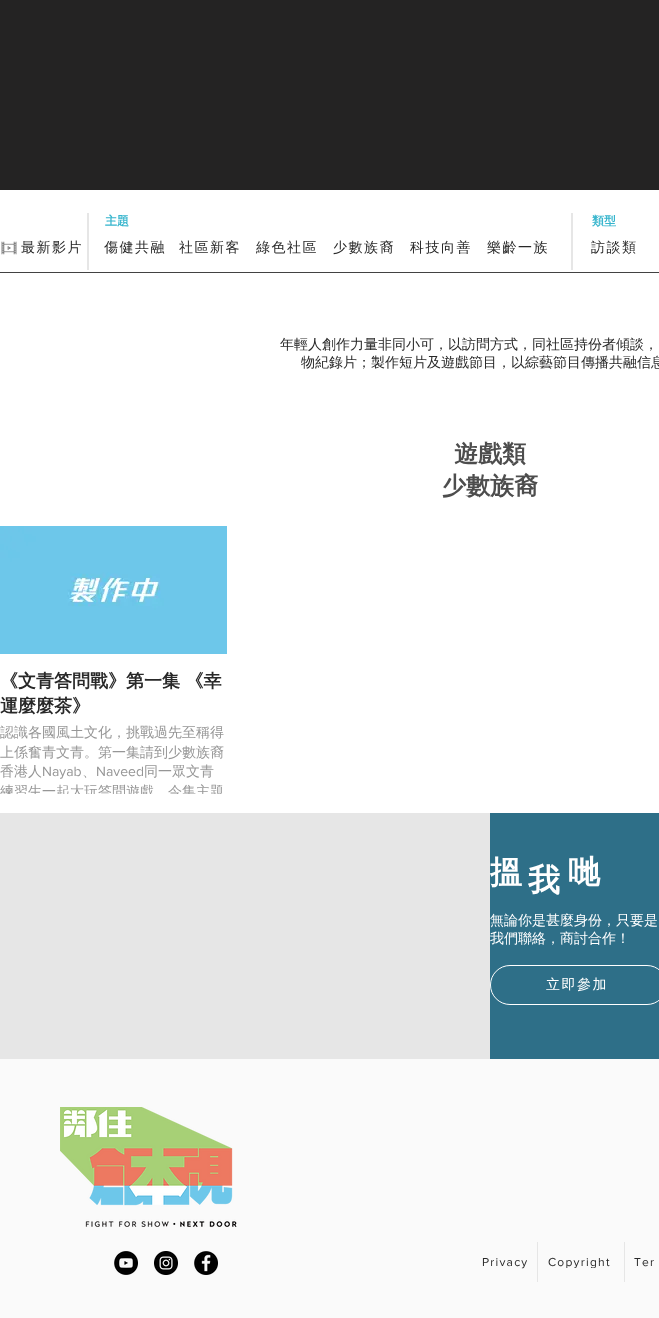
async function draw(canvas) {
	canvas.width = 659;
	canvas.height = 1318;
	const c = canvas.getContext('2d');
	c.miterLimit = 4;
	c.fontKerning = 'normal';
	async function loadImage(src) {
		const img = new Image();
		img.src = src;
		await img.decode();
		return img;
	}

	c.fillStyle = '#fff';
	c.fillRect(0, 0, 659, 1318);
	c.fillStyle = '#242323';
	c.fillRect(0, 0, 659, 190);
	c.fillStyle = '#e6e6e6';
	c.fillRect(87, 213, 2, 57);
	c.font = 'bold 12px WenQuanYi Zen Hei';
	c.fillStyle = '#36b5cd';
	c.fillText('主題', 105, 225);
	c.fillStyle = '#e6e6e6';
	c.fillRect(571, 213, 2, 57);
	c.fillStyle = '#36b5cd';
	c.fillText('類型', 592, 225);
	c.drawImage(await loadImage('img1.png'), 1, 241, 16, 14);
	c.letterSpacing = '1.5px';
	c.font = '500 14px WenQuanYi Zen Hei';
	c.fillStyle = '#282828';
	for (const [text, x, y] of [
		['最新影片', 21, 252],
		['傷健共融', 104, 252],
		['社區新客', 179, 252],
		['綠色社區', 256, 252],
		['少數族裔', 333, 252],
		['科技向善', 410, 252],
		['樂齡一族', 487, 252],
		['訪談類', 591, 252],
	]) {
		c.fillText(text, x, y);
	}
	c.fillStyle = '#424242';
	c.fillRect(0, 272, 659, 1);
	c.letterSpacing = '0px';
	c.fillStyle = '#282828';
	c.fillText('年輕人創作力量非同小可，以訪問方式，同社區持份者傾談，', 280, 349);
	c.fillText('物紀錄片；製作短片及遊戲節目，以綜藝節目傳播共融信息', 301, 367);
	c.font = 'bold 24px WenQuanYi Zen Hei';
	c.fillStyle = '#4d4d4d';
	c.fillText('遊戲類', 454, 462);
	c.fillText('少數族裔', 442, 494);
	c.drawImage(await loadImage('img2.png'), 0, 526, 227, 128);
	c.font = 'bold 18px WenQuanYi Zen Hei';
	c.fillStyle = '#282828';
	c.fillText('《文青答問戰》第一集 《幸', 0, 687);
	c.fillText('運麼麼茶》', 0, 712);
	c.font = '500 14px WenQuanYi Zen Hei';
	c.fillStyle = '#969696';
	for (const [text, x, y] of [
		['認識各國風土文化，挑戰過先至稱得', 0, 737],
		['上係奮青文青。第一集請到少數族裔', 0, 757],
		['香港人', 0, 776],
	]) {
		c.fillText(text, x, y);
	}
	c.font = '14px "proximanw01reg"';
	c.fillText('Nayab', 42, 776);
	c.font = '500 14px WenQuanYi Zen Hei';
	c.fillText('、', 82, 776);
	c.font = '14px "proximanw01reg"';
	c.fillText('Naveed', 96, 776);
	c.font = '500 14px WenQuanYi Zen Hei';
	c.fillText('同一眾文青', 144, 776);
	c.save();
	c.beginPath();
	c.rect(0, 723, 227, 71);
	c.clip();
	c.fillText('練習生一起大玩答問遊戲。今集主題', 0, 796);
	c.restore();
	c.fillStyle = '#e6e6e6';
	c.fillRect(0, 813, 490, 246);
	c.fillStyle = '#2e6f88';
	c.fillRect(490, 813, 169, 246);
	c.font = 'bold 32px WenQuanYi Zen Hei';
	c.fillStyle = '#fff';
	for (const [text, x, y] of [
		['搵', 490, 883],
		['我', 528, 891],
		['哋', 568, 883],
	]) {
		c.fillText(text, x, y);
	}
	c.font = '500 14px WenQuanYi Zen Hei';
	c.fillText('無論你是甚麼身份，只要是', 490, 925);
	c.fillText('我們聯絡，商討合作！', 490, 943);
	c.beginPath();
	c.roundRect(490.5, 965.5, 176, 39, 19.5);
	c.strokeStyle = '#fff';
	c.stroke();
	c.letterSpacing = '1.5px';
	c.fillText('立即參加', 546, 989);
	c.fillStyle = '#fafafa';
	c.fillRect(0, 1059, 659, 259);
	c.drawImage(await loadImage('img3.png'), 60, 1107, 177, 120);
	c.drawImage(await loadImage('img4.png'), 114, 1251, 24, 24);
	c.drawImage(await loadImage('img5.png'), 154, 1251, 24, 24);
	c.drawImage(await loadImage('img6.png'), 194, 1251, 24, 24);
	c.letterSpacing = '1.25px';
	c.font = '12px "proximanw01reg"';
	c.fillStyle = '#282828';
	c.fillText('Privacy', 482, 1266);
	c.fillStyle = '#e6e6e6';
	c.fillRect(537, 1242, 1, 40);
	c.save();
	c.beginPath();
	c.rect(548, 1255, 62, 13);
	c.clip();
	c.fillStyle = '#282828';
	c.fillText('Copyright', 548, 1266);
	c.restore();
	c.fillRect(624, 1242, 1, 40);
	c.fillStyle = '#282828';
	c.fillText('Ter', 634, 1266);
}

draw(document.querySelector('canvas'));
